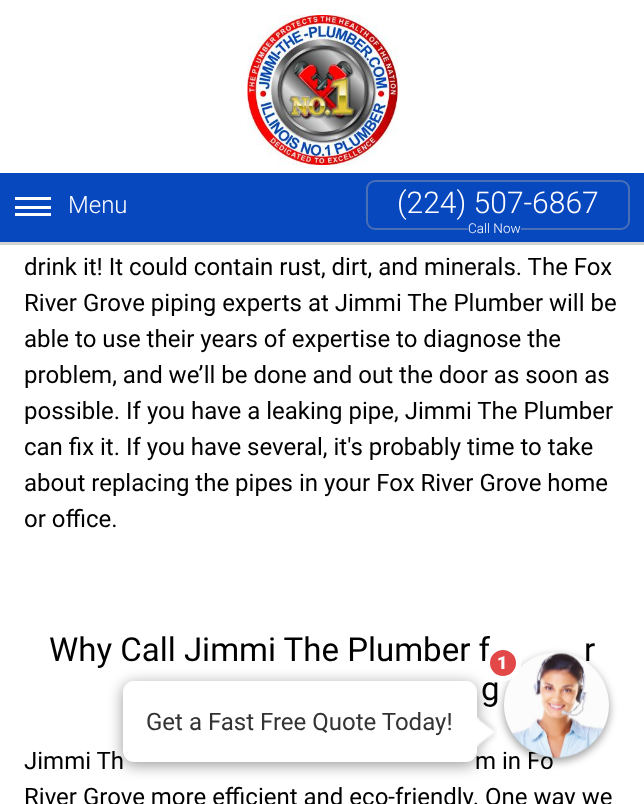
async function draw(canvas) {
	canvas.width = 644;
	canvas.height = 804;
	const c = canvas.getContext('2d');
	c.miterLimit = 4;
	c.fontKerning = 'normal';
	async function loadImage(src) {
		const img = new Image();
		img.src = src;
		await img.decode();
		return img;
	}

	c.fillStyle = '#fff';
	c.fillRect(0, 0, 644, 804);
	c.fillStyle = '#d3d3d3';
	c.fillRect(0, 242, 644, 3);
	c.drawImage(await loadImage('img1.png'), 247, 15, 151, 150);
	for (const [x, y, w, h, color] of [
		[0, 173, 644, 69, '#0848bf'],
		[15, 213, 36, 3, '#fff'],
		[15, 206, 36, 3, '#fff'],
		[15, 197, 36, 3, '#fff'],
	]) {
		c.fillStyle = color;
		c.fillRect(x, y, w, h);
	}
	c.font = '300 24px Roboto';
	c.fillText('Menu', 68, 213);
	c.beginPath();
	c.roundRect(367, 181, 262, 48, 8);
	c.strokeStyle = '#496fb7';
	c.lineWidth = 2;
	c.stroke();
	c.font = '300 30px Roboto';
	c.fillText('(224) 507-6867', 397, 213);
	c.fillStyle = '#0848bf';
	c.fillRect(468, 228, 53, 2);
	c.font = '300 13.5px Roboto';
	c.fillStyle = '#fff';
	c.fillText('Call Now', 468, 233);
	c.font = '24px Roboto';
	c.fillStyle = '#000';
	for (const [text, x, y] of [
		['drink it! It could contain rust, dirt, and minerals. The Fox', 24, 275],
		['River Grove piping experts at Jimmi The Plumber will be', 24, 311],
		['able to use their years of expertise to diagnose the', 24, 347],
		['problem, and we’ll be done and out the door as soon as', 24, 383],
		['possible. If you have a leaking pipe, Jimmi The Plumber', 24, 419],
		['can fix it. If you have several, it\'s probably time to take', 24, 455],
		['about replacing the pipes in your Fox River Grove home', 24, 491],
		['or office.', 24, 527],
	]) {
		c.fillText(text, x, y);
	}
	c.font = '33px Roboto';
	for (const [text, x, y] of [
		['Why Call Jimmi The Plumber f', 49, 661],
		['r', 584, 661],
		['g', 481, 700],
	]) {
		c.fillText(text, x, y);
	}
	c.font = '24px Roboto';
	for (const [text, x, y] of [
		['Jimmi Th', 24, 769],
		['m in Fo', 475, 769],
		['River Grove more efficient and eco-friendly. One way we', 24, 805],
	]) {
		c.fillText(text, x, y);
	}
	c.fillStyle = '#00000066';
	c.filter = 'blur(4.5px)';
	c.beginPath();
	c.roundRect(504, 656, 105, 105, 52.5);
	c.fill();
	c.filter = 'none';
	c.drawImage(await loadImage('img2.png'), 504, 652, 105, 106);
	c.filter = 'blur(7.5px)';
	c.beginPath();
	c.roundRect(123, 684, 354, 81, 11);
	c.fill();
	c.filter = 'none';
	c.fillStyle = '#e24848';
	c.beginPath();
	c.arc(503, 663, 15.5, 0, 2 * Math.PI);
	c.fill();
	c.strokeStyle = '#fff';
	c.lineWidth = 5;
	c.stroke();
	c.font = '900 18px Roboto';
	c.fillStyle = '#fff';
	c.fillText('1', 497, 669);
	c.beginPath();
	c.roundRect(123, 681, 354, 81, 11);
	c.fill();
	c.font = '24px Roboto';
	c.fillStyle = '#333';
	c.fillText('Get a Fast Free Quote Today!', 146, 730);
	c.drawImage(await loadImage('img3.png'), 477, 716, 20, 32);
}

draw(document.querySelector('canvas'));
